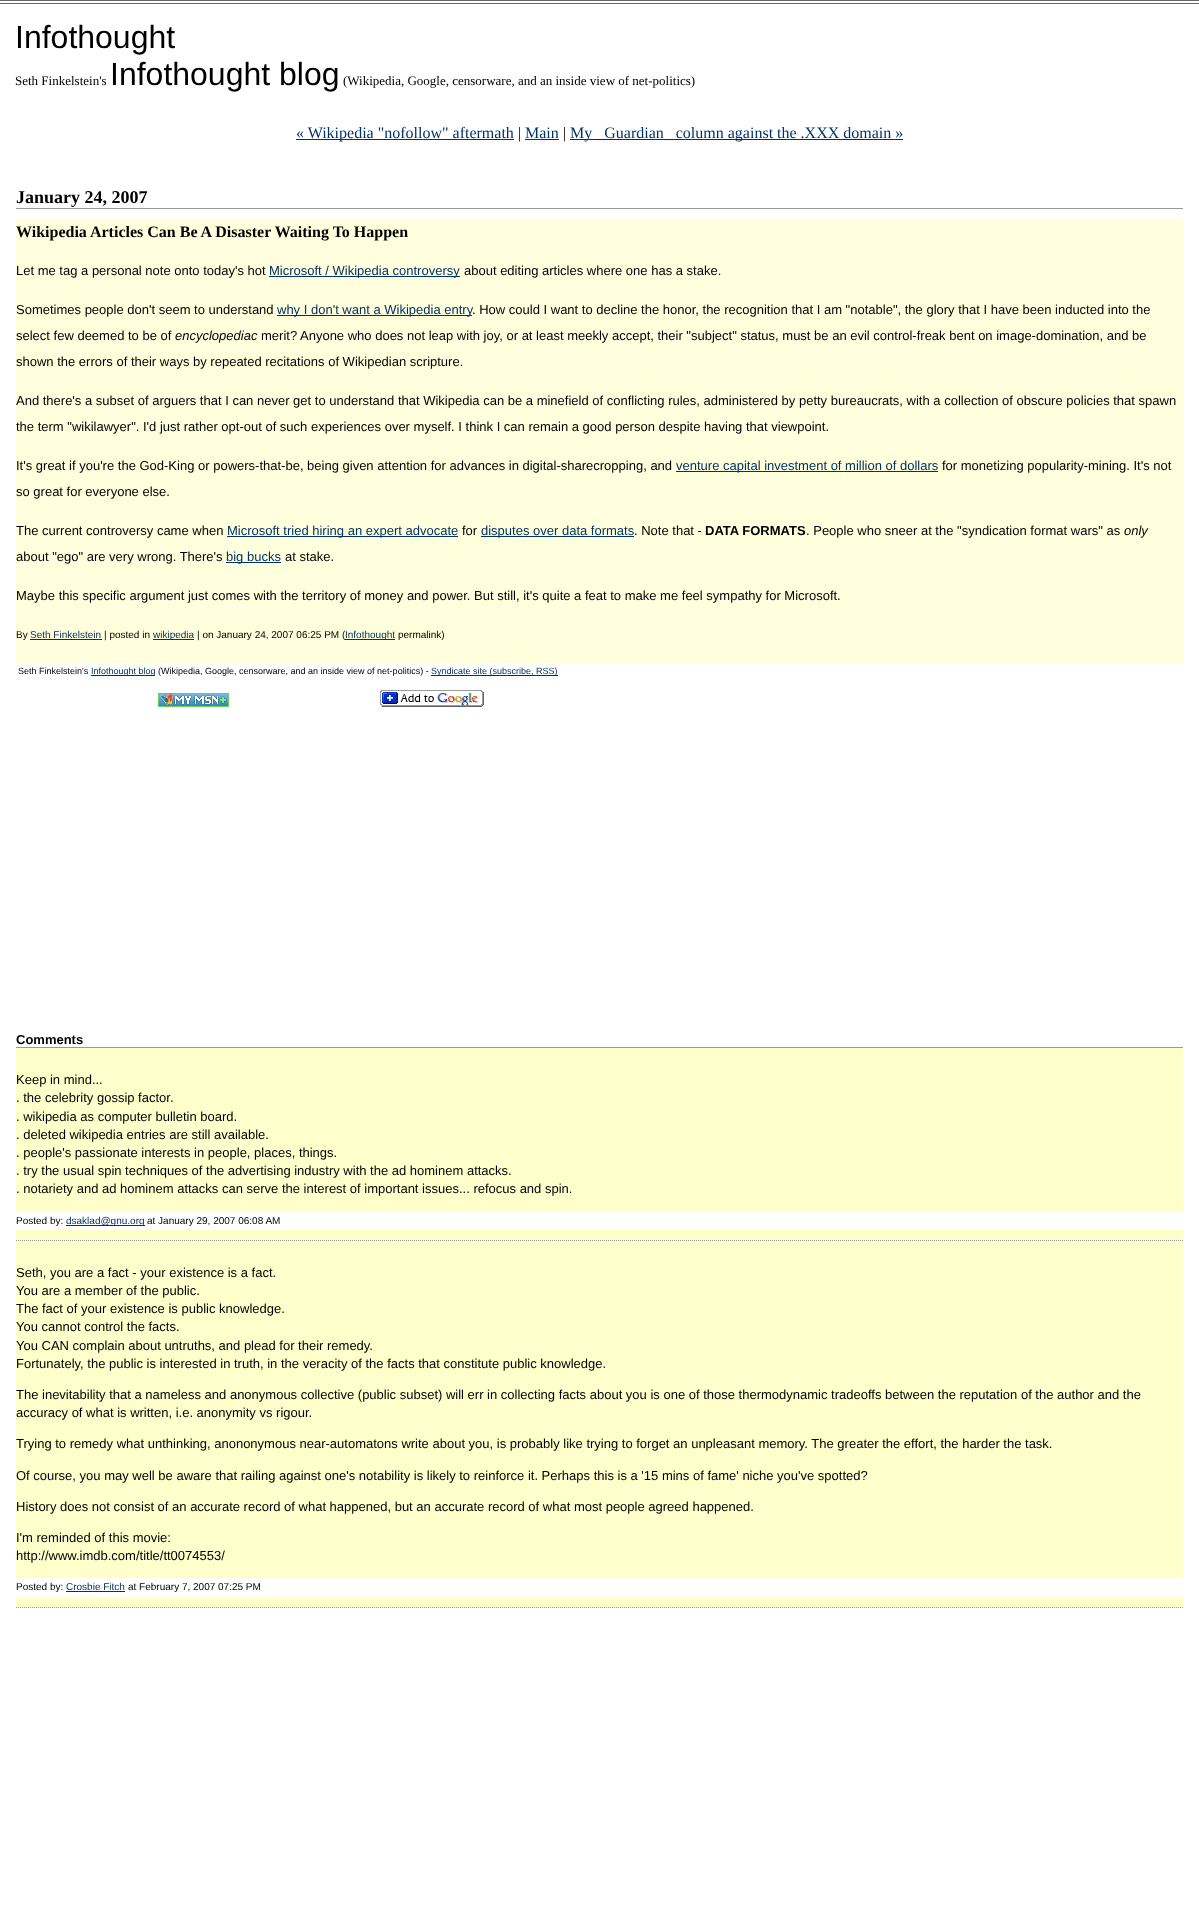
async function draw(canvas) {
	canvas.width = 1199;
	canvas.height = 1929;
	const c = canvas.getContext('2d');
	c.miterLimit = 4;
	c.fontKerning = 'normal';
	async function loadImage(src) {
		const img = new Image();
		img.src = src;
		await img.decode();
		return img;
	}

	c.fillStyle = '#fff';
	c.fillRect(0, 0, 1199, 1929);
	c.fillStyle = '#666';
	c.fillRect(0, 0, 1199, 1);
	c.fillRect(0, 3, 1199, 1);
	c.font = '32px Liberation Sans';
	c.fillStyle = '#000';
	c.fillText('Infothought', 15, 48);
	c.font = '13px Liberation Serif';
	c.fillText('Seth Finkelstein\'s', 15, 85);
	c.font = '32px Liberation Sans';
	c.fillText('Infothought blog', 110, 85);
	c.font = '13px Liberation Serif';
	c.fillText('(Wikipedia, Google, censorware, and an inside view of net-politics)', 343, 85);
	c.fillStyle = '#036';
	c.fillRect(296, 139, 218, 1);
	c.font = '16px Liberation Serif';
	c.fillText('« Wikipedia "nofollow" aftermath', 296, 138);
	c.fillStyle = '#000';
	c.fillText('|', 518, 138);
	c.fillStyle = '#036';
	c.fillText('Main', 525, 138);
	c.fillRect(525, 139, 34, 1);
	c.fillStyle = '#000';
	c.fillText('|', 563, 138);
	c.fillStyle = '#036';
	c.fillRect(570, 139, 333, 1);
	c.fillText('My _Guardian_ column against the .XXX domain »', 570, 138);
	c.fillStyle = '#999';
	c.fillRect(16, 208, 1167, 1);
	c.font = 'bold 18px Liberation Serif';
	c.fillStyle = '#000';
	c.fillText('January 24, 2007', 16, 203);
	c.fillStyle = '#ffd';
	c.fillRect(16, 219, 1167, 444);
	c.font = 'bold 16px Liberation Serif';
	c.fillStyle = '#000';
	c.fillText('Wikipedia Articles Can Be A Disaster Waiting To Happen', 16, 237);
	c.font = '13px Liberation Sans';
	c.fillText('Let me tag a personal note onto today\'s hot', 16, 275);
	c.fillStyle = '#036';
	c.fillRect(269, 276, 191, 1);
	c.fillText('Microsoft / Wikipedia controversy', 269, 275);
	c.fillStyle = '#000';
	c.fillText('about editing articles where one has a stake.', 464, 275);
	c.fillText('Sometimes people don\'t seem to understand', 16, 314);
	c.fillStyle = '#036';
	c.fillRect(277, 315, 195, 1);
	c.fillText('why I don\'t want a Wikipedia entry', 277, 314);
	c.fillStyle = '#000';
	c.fillText('. How could I want to decline the honor, the recognition that I am "notable", the glory that I have been inducted into the', 472, 314);
	c.fillText('select few deemed to be of', 16, 340);
	c.font = 'italic 13px Liberation Sans';
	c.fillText('encyclopediac', 175, 340);
	c.font = '13px Liberation Sans';
	for (const [text, x, y] of [
		['merit? Anyone who does not leap with joy, or at least meekly accept, their "subject" status, must be an evil control-freak bent on image-domination, and be', 261, 340],
		['shown the errors of their ways by repeated recitations of Wikipedian scripture.', 16, 366],
		['And there\'s a subset of arguers that I can never get to understand that Wikipedia can be a minefield of conflicting rules, administered by petty bureaucrats, with a collection of obscure policies that spawn', 16, 405],
		['the term "wikilawyer". I\'d just rather opt-out of such experiences over myself. I think I can remain a good person despite having that viewpoint.', 16, 431],
		['It\'s great if you\'re the God-King or powers-that-be, being given attention for advances in digital-sharecropping, and', 16, 470],
	]) {
		c.fillText(text, x, y);
	}
	c.fillStyle = '#036';
	c.fillRect(676, 471, 262, 1);
	c.fillText('venture capital investment of million of dollars', 676, 470);
	c.fillStyle = '#000';
	for (const [text, x, y] of [
		['for monetizing popularity-mining. It\'s not', 942, 470],
		['so great for everyone else.', 16, 496],
		['The current controversy came when', 16, 535],
	]) {
		c.fillText(text, x, y);
	}
	c.fillStyle = '#036';
	c.fillRect(227, 536, 231, 1);
	c.fillText('Microsoft tried hiring an expert advocate', 227, 535);
	c.fillStyle = '#000';
	c.fillText('for', 462, 535);
	c.fillStyle = '#036';
	c.fillRect(481, 536, 153, 1);
	c.fillText('disputes over data formats', 481, 535);
	c.fillStyle = '#000';
	c.fillText('. Note that -', 634, 535);
	c.font = 'bold 13px Liberation Sans';
	c.fillText('DATA FORMATS', 705, 535);
	c.font = '13px Liberation Sans';
	c.fillText('. People who sneer at the "syndication format wars" as', 806, 535);
	c.font = 'italic 13px Liberation Sans';
	c.fillText('only', 1124, 535);
	c.font = '13px Liberation Sans';
	c.fillText('about "ego" are very wrong. There\'s', 16, 561);
	c.fillStyle = '#036';
	c.fillRect(226, 562, 55, 1);
	c.fillText('big bucks', 226, 561);
	c.fillStyle = '#000';
	c.fillText('at stake.', 285, 561);
	c.fillText('Maybe this specific argument just comes with the territory of money and power. But still, it\'s quite a feat to make me feel sympathy for Microsoft.', 16, 600);
	c.font = '10px Liberation Sans';
	c.fillText('By', 16, 638);
	c.fillStyle = '#036';
	c.fillRect(30, 639, 72, 1);
	c.fillText('Seth Finkelstein', 30, 638);
	c.fillStyle = '#000';
	c.fillText('| posted in', 104, 638);
	c.fillStyle = '#036';
	c.fillRect(153, 639, 41, 1);
	c.fillText('wikipedia', 153, 638);
	c.fillStyle = '#000';
	c.fillText('| on January 24, 2007 06:25 PM (', 197, 638);
	c.fillStyle = '#036';
	c.fillRect(345, 639, 50, 1);
	c.fillText('Infothought', 345, 638);
	c.fillStyle = '#000';
	c.fillText('permalink)', 398, 638);
	c.font = '9px Liberation Sans';
	c.fillText('Seth Finkelstein\'s', 18, 674);
	c.fillStyle = '#036';
	c.fillRect(91, 675, 64, 1);
	c.fillText('Infothought blog', 91, 674);
	c.fillStyle = '#000';
	c.fillText('(Wikipedia, Google, censorware, and an inside view of net-politics) -', 158, 674);
	c.fillStyle = '#036';
	c.fillRect(431, 675, 127, 1);
	c.fillText('Syndicate site (subscribe, RSS)', 431, 674);
	c.drawImage(await loadImage('img1.png'), 158, 693, 71, 14);
	c.drawImage(await loadImage('img2.png'), 380, 690, 104, 17);
	c.fillStyle = '#999';
	c.fillRect(16, 1047, 1167, 1);
	c.font = 'bold 13px Liberation Sans';
	c.fillStyle = '#000';
	c.fillText('Comments', 16, 1044);
	c.fillStyle = '#ffc';
	c.fillRect(16, 1048, 1167, 560);
	c.beginPath();
	c.moveTo(16, 1240.5);
	c.lineTo(1183, 1240.5);
	c.strokeStyle = '#999';
	c.setLineDash([1, 1]);
	c.stroke();
	c.font = '13px Liberation Sans';
	c.fillStyle = '#000';
	for (const [text, x, y] of [
		['Keep in mind...', 16, 1084],
		['. the celebrity gossip factor.', 16, 1102],
		['. wikipedia as computer bulletin board.', 16, 1121],
		['. deleted wikipedia entries are still available.', 16, 1139],
		['. people\'s passionate interests in people, places, things.', 16, 1157],
		['. try the usual spin techniques of the advertising industry with the ad hominem attacks.', 16, 1175],
		['. notariety and ad hominem attacks can serve the interest of important issues... refocus and spin.', 16, 1193],
	]) {
		c.fillText(text, x, y);
	}
	c.fillStyle = '#fff';
	c.fillRect(16, 1212, 1167, 18);
	c.font = '10px Liberation Sans';
	c.fillStyle = '#000';
	c.fillText('Posted by:', 16, 1224);
	c.fillStyle = '#036';
	c.fillRect(66, 1225, 79, 1);
	c.fillText('dsaklad@gnu.org', 66, 1224);
	c.fillStyle = '#000';
	c.fillText('at January 29, 2007 06:08 AM', 147, 1224);
	c.beginPath();
	c.moveTo(16, 1607.5);
	c.lineTo(1183, 1607.5);
	c.stroke();
	c.font = '13px Liberation Sans';
	for (const [text, x, y] of [
		['Seth, you are a fact - your existence is a fact.', 16, 1277],
		['You are a member of the public.', 16, 1295],
		['The fact of your existence is public knowledge.', 16, 1313],
		['You cannot control the facts.', 16, 1331],
		['You CAN complain about untruths, and plead for their remedy.', 16, 1350],
		['Fortunately, the public is interested in truth, in the veracity of the facts that constitute public knowledge.', 16, 1368],
		['The inevitability that a nameless and anonymous collective (public subset) will err in collecting facts about you is one of those thermodynamic tradeoffs between the reputation of the author and the', 16, 1399],
		['accuracy of what is written, i.e. anonymity vs rigour.', 16, 1417],
		['Trying to remedy what unthinking, anononymous near-automatons write about you, is probably like trying to forget an unpleasant memory. The greater the effort, the harder the task.', 16, 1448],
		['Of course, you may well be aware that railing against one\'s notability is likely to reinforce it. Perhaps this is a \'15 mins of fame\' niche you\'ve spotted?', 16, 1480],
		['History does not consist of an accurate record of what happened, but an accurate record of what most people agreed happened.', 16, 1511],
		['I\'m reminded of this movie:', 16, 1542],
		['http://www.imdb.com/title/tt0074553/', 16, 1560],
	]) {
		c.fillText(text, x, y);
	}
	c.fillStyle = '#fff';
	c.fillRect(16, 1578, 1167, 19);
	c.font = '10px Liberation Sans';
	c.fillStyle = '#000';
	c.fillText('Posted by:', 16, 1590);
	c.fillStyle = '#036';
	c.fillText('Crosbie Fitch', 66, 1590);
	c.fillRect(66, 1591, 59, 1);
	c.fillStyle = '#000';
	c.fillText('at February 7, 2007 07:25 PM', 128, 1590);
}

draw(document.querySelector('canvas'));
